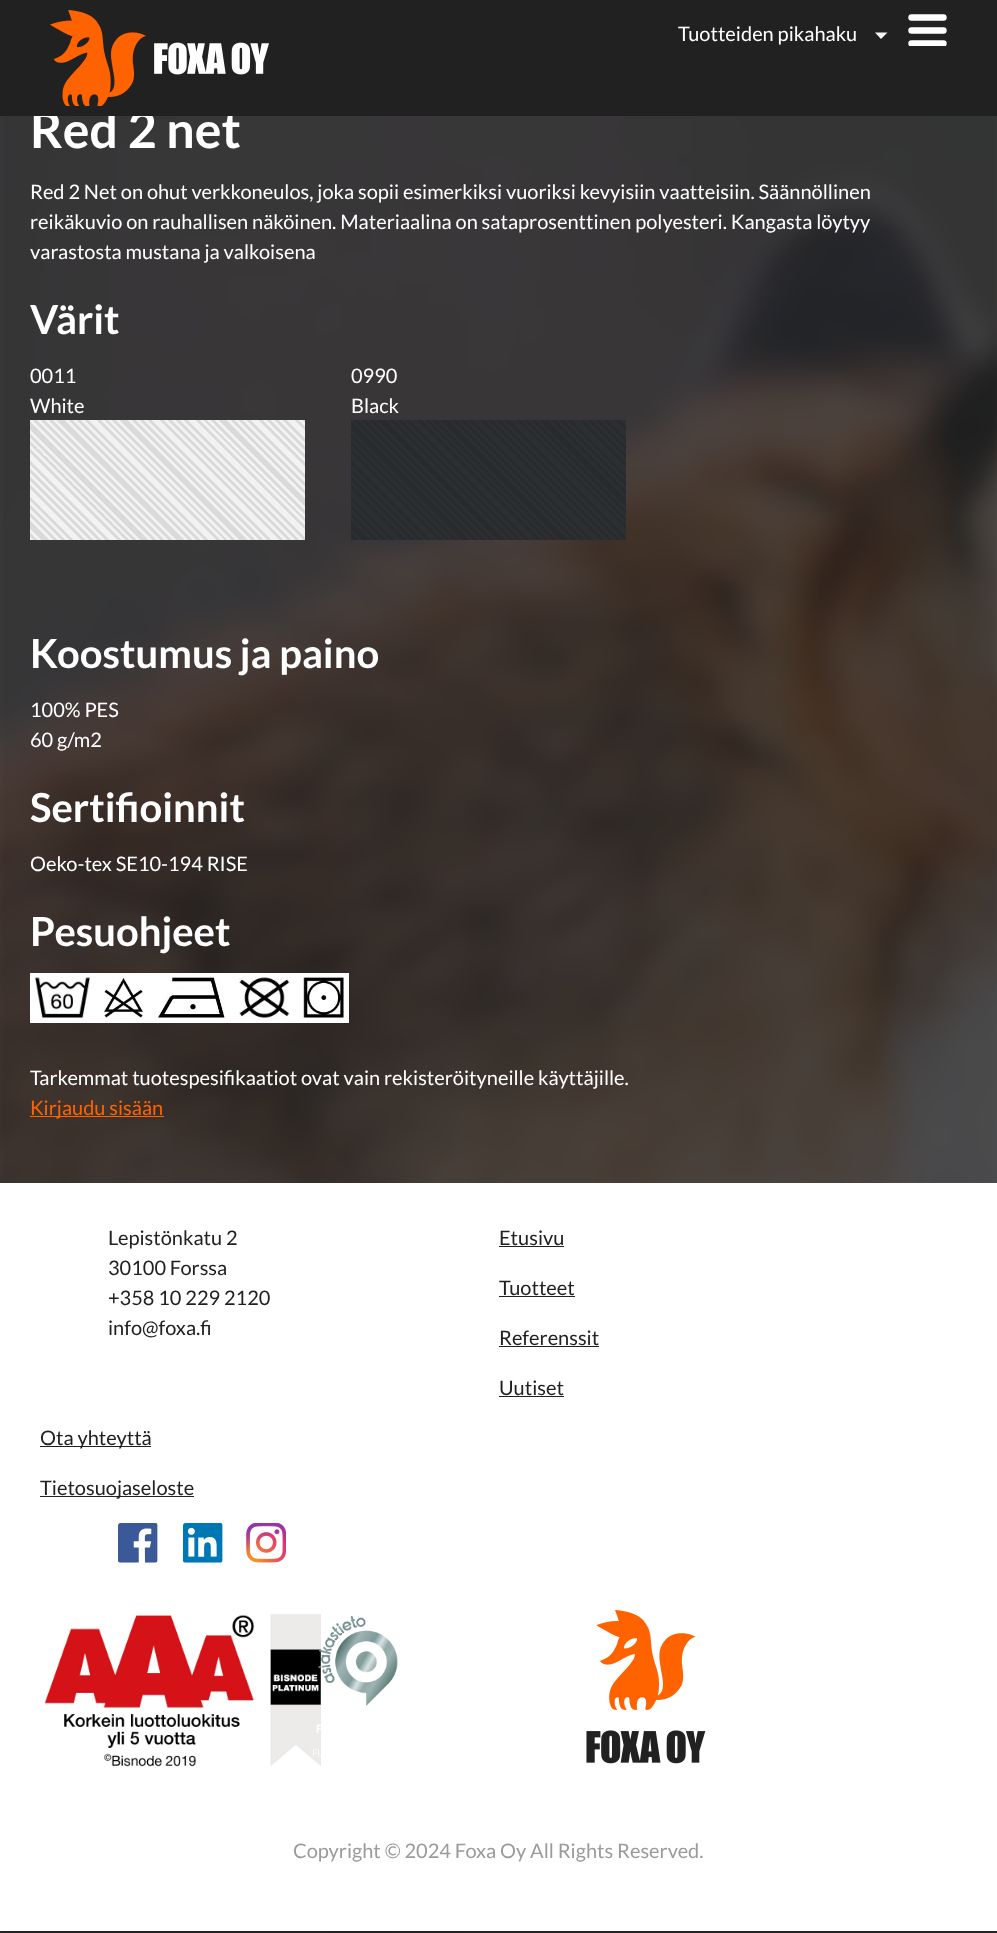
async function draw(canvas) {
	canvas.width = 997;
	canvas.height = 1933;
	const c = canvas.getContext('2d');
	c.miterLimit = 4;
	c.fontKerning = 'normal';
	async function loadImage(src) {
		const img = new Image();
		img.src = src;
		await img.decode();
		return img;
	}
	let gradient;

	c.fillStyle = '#fff';
	c.fillRect(0, 0, 997, 1933);
	c.drawImage(await loadImage('img7.png'), 0, 116, 997, 1817);
	c.font = 'bold 50px Lato';
	c.fillText('Red 2 net', 30, 148);
	c.fillStyle = '#212121';
	c.fillRect(0, 0, 997, 116);
	c.drawImage(await loadImage('img1.png'), 50, 10, 219, 96);
	c.font = '20px Lato';
	c.fillStyle = '#fff';
	c.fillText('Tuotteiden pikahaku', 678, 41);
	c.fillStyle = '#f5f5f5';
	c.beginPath();
	c.moveTo(875, 32.5);
	c.lineTo(887.5, 32.5);
	c.lineTo(881, 39);
	c.closePath();
	c.fill();
	c.save();
	c.beginPath();
	c.rect(908, 14, 40, 32);
	c.clip();
	c.beginPath();
	c.moveTo(911.5, 43.5);
	c.lineTo(943.5, 43.5);
	c.moveTo(911.5, 30.5);
	c.lineTo(943.5, 30.5);
	c.moveTo(911.5, 17.5);
	c.lineTo(943.5, 17.5);
	c.strokeStyle = '#fff';
	c.lineWidth = 6.4;
	c.lineCap = 'round';
	c.stroke();
	c.restore();
	c.fillStyle = '#fff';
	for (const [text, x, y] of [
		['Red 2 Net on ohut verkkoneulos, joka sopii esimerkiksi vuoriksi kevyisiin vaatteisiin. Säännöllinen', 30, 199],
		['reikäkuvio on rauhallisen näköinen. Materiaalina on sataprosenttinen polyesteri. Kangasta löytyy', 30, 229],
		['varastosta mustana ja valkoisena', 30, 259],
	]) {
		c.fillText(text, x, y);
	}
	c.font = 'bold 40px Lato';
	c.fillText('Värit', 30, 334);
	c.font = '20px Lato';
	c.fillText('0011', 30, 383);
	c.fillText('White', 30, 413);
	gradient = c.createLinearGradient(69, 579, 267, 381);
	gradient.addColorStop(0, '#f1f2f1');
	gradient.addColorStop(0.01, '#f1f2f1');
	gradient.addColorStop(0.01, '#d9dad9');
	gradient.addColorStop(0.02, '#d9dad9');
	gradient.addColorStop(0.02, '#f1f2f1');
	gradient.addColorStop(0.03, '#f1f2f1');
	gradient.addColorStop(0.03, '#d9dad9');
	gradient.addColorStop(0.04, '#d9dad9');
	gradient.addColorStop(0.04, '#f1f2f1');
	gradient.addColorStop(0.04, '#d9dad9');
	gradient.addColorStop(0.05, '#d9dad9');
	gradient.addColorStop(0.05, '#f1f2f1');
	gradient.addColorStop(0.06, '#f1f2f1');
	gradient.addColorStop(0.06, '#d9dad9');
	gradient.addColorStop(0.07, '#d9dad9');
	gradient.addColorStop(0.07, '#f1f2f1');
	gradient.addColorStop(0.08, '#f1f2f1');
	gradient.addColorStop(0.08, '#d9dad9');
	gradient.addColorStop(0.09, '#d9dad9');
	gradient.addColorStop(0.09, '#f1f2f1');
	gradient.addColorStop(0.1, '#f1f2f1');
	gradient.addColorStop(0.1, '#d9dad9');
	gradient.addColorStop(0.11, '#d9dad9');
	gradient.addColorStop(0.11, '#f1f2f1');
	gradient.addColorStop(0.12, '#f1f2f1');
	gradient.addColorStop(0.12, '#d9dad9');
	gradient.addColorStop(0.12, '#f1f2f1');
	gradient.addColorStop(0.13, '#f1f2f1');
	gradient.addColorStop(0.13, '#d9dad9');
	gradient.addColorStop(0.14, '#d9dad9');
	gradient.addColorStop(0.14, '#f1f2f1');
	gradient.addColorStop(0.15, '#f1f2f1');
	gradient.addColorStop(0.15, '#d9dad9');
	gradient.addColorStop(0.16, '#d9dad9');
	gradient.addColorStop(0.16, '#f1f2f1');
	gradient.addColorStop(0.17, '#f1f2f1');
	gradient.addColorStop(0.17, '#d9dad9');
	gradient.addColorStop(0.18, '#d9dad9');
	gradient.addColorStop(0.18, '#f1f2f1');
	gradient.addColorStop(0.19, '#f1f2f1');
	gradient.addColorStop(0.19, '#d9dad9');
	gradient.addColorStop(0.2, '#d9dad9');
	gradient.addColorStop(0.2, '#f1f2f1');
	gradient.addColorStop(0.21, '#f1f2f1');
	gradient.addColorStop(0.21, '#d9dad9');
	gradient.addColorStop(0.21, '#f1f2f1');
	gradient.addColorStop(0.22, '#f1f2f1');
	gradient.addColorStop(0.22, '#d9dad9');
	gradient.addColorStop(0.23, '#d9dad9');
	gradient.addColorStop(0.23, '#f1f2f1');
	gradient.addColorStop(0.24, '#f1f2f1');
	gradient.addColorStop(0.24, '#d9dad9');
	gradient.addColorStop(0.25, '#d9dad9');
	gradient.addColorStop(0.25, '#f1f2f1');
	gradient.addColorStop(0.26, '#f1f2f1');
	gradient.addColorStop(0.26, '#d9dad9');
	gradient.addColorStop(0.27, '#d9dad9');
	gradient.addColorStop(0.27, '#f1f2f1');
	gradient.addColorStop(0.28, '#f1f2f1');
	gradient.addColorStop(0.28, '#d9dad9');
	gradient.addColorStop(0.29, '#d9dad9');
	gradient.addColorStop(0.29, '#f1f2f1');
	gradient.addColorStop(0.29, '#d9dad9');
	gradient.addColorStop(0.3, '#d9dad9');
	gradient.addColorStop(0.3, '#f1f2f1');
	gradient.addColorStop(0.31, '#f1f2f1');
	gradient.addColorStop(0.31, '#d9dad9');
	gradient.addColorStop(0.32, '#d9dad9');
	gradient.addColorStop(0.32, '#f1f2f1');
	gradient.addColorStop(0.33, '#f1f2f1');
	gradient.addColorStop(0.33, '#d9dad9');
	gradient.addColorStop(0.34, '#d9dad9');
	gradient.addColorStop(0.34, '#f1f2f1');
	gradient.addColorStop(0.35, '#f1f2f1');
	gradient.addColorStop(0.35, '#d9dad9');
	gradient.addColorStop(0.36, '#d9dad9');
	gradient.addColorStop(0.36, '#f1f2f1');
	gradient.addColorStop(0.37, '#f1f2f1');
	gradient.addColorStop(0.37, '#d9dad9');
	gradient.addColorStop(0.38, '#d9dad9');
	gradient.addColorStop(0.38, '#f1f2f1');
	gradient.addColorStop(0.38, '#d9dad9');
	gradient.addColorStop(0.39, '#d9dad9');
	gradient.addColorStop(0.39, '#f1f2f1');
	gradient.addColorStop(0.4, '#f1f2f1');
	gradient.addColorStop(0.4, '#d9dad9');
	gradient.addColorStop(0.41, '#d9dad9');
	gradient.addColorStop(0.41, '#f1f2f1');
	gradient.addColorStop(0.42, '#f1f2f1');
	gradient.addColorStop(0.42, '#d9dad9');
	gradient.addColorStop(0.43, '#d9dad9');
	gradient.addColorStop(0.43, '#f1f2f1');
	gradient.addColorStop(0.44, '#f1f2f1');
	gradient.addColorStop(0.44, '#d9dad9');
	gradient.addColorStop(0.45, '#d9dad9');
	gradient.addColorStop(0.45, '#f1f2f1');
	gradient.addColorStop(0.46, '#f1f2f1');
	gradient.addColorStop(0.46, '#d9dad9');
	gradient.addColorStop(0.46, '#f1f2f1');
	gradient.addColorStop(0.47, '#f1f2f1');
	gradient.addColorStop(0.47, '#d9dad9');
	gradient.addColorStop(0.48, '#d9dad9');
	gradient.addColorStop(0.48, '#f1f2f1');
	gradient.addColorStop(0.49, '#f1f2f1');
	gradient.addColorStop(0.49, '#d9dad9');
	gradient.addColorStop(0.5, '#d9dad9');
	gradient.addColorStop(0.5, '#f1f2f1');
	gradient.addColorStop(0.51, '#f1f2f1');
	gradient.addColorStop(0.51, '#d9dad9');
	gradient.addColorStop(0.52, '#d9dad9');
	gradient.addColorStop(0.52, '#f1f2f1');
	gradient.addColorStop(0.53, '#f1f2f1');
	gradient.addColorStop(0.53, '#d9dad9');
	gradient.addColorStop(0.54, '#d9dad9');
	gradient.addColorStop(0.54, '#f1f2f1');
	gradient.addColorStop(0.54, '#d9dad9');
	gradient.addColorStop(0.55, '#d9dad9');
	gradient.addColorStop(0.55, '#f1f2f1');
	gradient.addColorStop(0.56, '#f1f2f1');
	gradient.addColorStop(0.56, '#d9dad9');
	gradient.addColorStop(0.57, '#d9dad9');
	gradient.addColorStop(0.57, '#f1f2f1');
	gradient.addColorStop(0.58, '#f1f2f1');
	gradient.addColorStop(0.58, '#d9dad9');
	gradient.addColorStop(0.59, '#d9dad9');
	gradient.addColorStop(0.59, '#f1f2f1');
	gradient.addColorStop(0.6, '#f1f2f1');
	gradient.addColorStop(0.6, '#d9dad9');
	gradient.addColorStop(0.61, '#d9dad9');
	gradient.addColorStop(0.61, '#f1f2f1');
	gradient.addColorStop(0.62, '#f1f2f1');
	gradient.addColorStop(0.62, '#d9dad9');
	gradient.addColorStop(0.62, '#f1f2f1');
	gradient.addColorStop(0.63, '#f1f2f1');
	gradient.addColorStop(0.63, '#d9dad9');
	gradient.addColorStop(0.64, '#d9dad9');
	gradient.addColorStop(0.64, '#f1f2f1');
	gradient.addColorStop(0.65, '#f1f2f1');
	gradient.addColorStop(0.65, '#d9dad9');
	gradient.addColorStop(0.66, '#d9dad9');
	gradient.addColorStop(0.66, '#f1f2f1');
	gradient.addColorStop(0.67, '#f1f2f1');
	gradient.addColorStop(0.67, '#d9dad9');
	gradient.addColorStop(0.68, '#d9dad9');
	gradient.addColorStop(0.68, '#f1f2f1');
	gradient.addColorStop(0.69, '#f1f2f1');
	gradient.addColorStop(0.69, '#d9dad9');
	gradient.addColorStop(0.7, '#d9dad9');
	gradient.addColorStop(0.7, '#f1f2f1');
	gradient.addColorStop(0.71, '#f1f2f1');
	gradient.addColorStop(0.71, '#d9dad9');
	gradient.addColorStop(0.71, '#f1f2f1');
	gradient.addColorStop(0.72, '#f1f2f1');
	gradient.addColorStop(0.72, '#d9dad9');
	gradient.addColorStop(0.73, '#d9dad9');
	gradient.addColorStop(0.73, '#f1f2f1');
	gradient.addColorStop(0.74, '#f1f2f1');
	gradient.addColorStop(0.74, '#d9dad9');
	gradient.addColorStop(0.75, '#d9dad9');
	gradient.addColorStop(0.75, '#f1f2f1');
	gradient.addColorStop(0.76, '#f1f2f1');
	gradient.addColorStop(0.76, '#d9dad9');
	gradient.addColorStop(0.77, '#d9dad9');
	gradient.addColorStop(0.77, '#f1f2f1');
	gradient.addColorStop(0.78, '#f1f2f1');
	gradient.addColorStop(0.78, '#d9dad9');
	gradient.addColorStop(0.79, '#d9dad9');
	gradient.addColorStop(0.79, '#f1f2f1');
	gradient.addColorStop(0.79, '#d9dad9');
	gradient.addColorStop(0.8, '#d9dad9');
	gradient.addColorStop(0.8, '#f1f2f1');
	gradient.addColorStop(0.81, '#f1f2f1');
	gradient.addColorStop(0.81, '#d9dad9');
	gradient.addColorStop(0.82, '#d9dad9');
	gradient.addColorStop(0.82, '#f1f2f1');
	gradient.addColorStop(0.83, '#f1f2f1');
	gradient.addColorStop(0.83, '#d9dad9');
	gradient.addColorStop(0.84, '#d9dad9');
	gradient.addColorStop(0.84, '#f1f2f1');
	gradient.addColorStop(0.85, '#f1f2f1');
	gradient.addColorStop(0.85, '#d9dad9');
	gradient.addColorStop(0.86, '#d9dad9');
	gradient.addColorStop(0.86, '#f1f2f1');
	gradient.addColorStop(0.87, '#f1f2f1');
	gradient.addColorStop(0.87, '#d9dad9');
	gradient.addColorStop(0.87, '#f1f2f1');
	gradient.addColorStop(0.88, '#f1f2f1');
	gradient.addColorStop(0.88, '#d9dad9');
	gradient.addColorStop(0.89, '#d9dad9');
	gradient.addColorStop(0.89, '#f1f2f1');
	gradient.addColorStop(0.9, '#f1f2f1');
	gradient.addColorStop(0.9, '#d9dad9');
	gradient.addColorStop(0.91, '#d9dad9');
	gradient.addColorStop(0.91, '#f1f2f1');
	gradient.addColorStop(0.92, '#f1f2f1');
	gradient.addColorStop(0.92, '#d9dad9');
	gradient.addColorStop(0.93, '#d9dad9');
	gradient.addColorStop(0.93, '#f1f2f1');
	gradient.addColorStop(0.94, '#f1f2f1');
	gradient.addColorStop(0.94, '#d9dad9');
	gradient.addColorStop(0.95, '#d9dad9');
	gradient.addColorStop(0.95, '#f1f2f1');
	gradient.addColorStop(0.96, '#f1f2f1');
	gradient.addColorStop(0.96, '#d9dad9');
	gradient.addColorStop(0.96, '#f1f2f1');
	gradient.addColorStop(0.97, '#f1f2f1');
	gradient.addColorStop(0.97, '#d9dad9');
	gradient.addColorStop(0.98, '#d9dad9');
	gradient.addColorStop(0.98, '#f1f2f1');
	gradient.addColorStop(0.99, '#f1f2f1');
	gradient.addColorStop(0.99, '#d9dad9');
	gradient.addColorStop(1, '#d9dad9');
	c.fillStyle = gradient;
	c.fillRect(30, 420, 275, 120);
	c.fillStyle = '#fff';
	c.fillText('0990', 351, 383);
	c.fillText('Black', 351, 413);
	gradient = c.createLinearGradient(390, 579, 588, 381);
	gradient.addColorStop(0, '#2c2f32');
	gradient.addColorStop(0.01, '#2c2f32');
	gradient.addColorStop(0.01, '#282a2d');
	gradient.addColorStop(0.02, '#282a2d');
	gradient.addColorStop(0.02, '#2c2f32');
	gradient.addColorStop(0.03, '#2c2f32');
	gradient.addColorStop(0.03, '#282a2d');
	gradient.addColorStop(0.04, '#282a2d');
	gradient.addColorStop(0.04, '#2c2f32');
	gradient.addColorStop(0.04, '#282a2d');
	gradient.addColorStop(0.05, '#282a2d');
	gradient.addColorStop(0.05, '#2c2f32');
	gradient.addColorStop(0.06, '#2c2f32');
	gradient.addColorStop(0.06, '#282a2d');
	gradient.addColorStop(0.07, '#282a2d');
	gradient.addColorStop(0.07, '#2c2f32');
	gradient.addColorStop(0.08, '#2c2f32');
	gradient.addColorStop(0.08, '#282a2d');
	gradient.addColorStop(0.09, '#282a2d');
	gradient.addColorStop(0.09, '#2c2f32');
	gradient.addColorStop(0.1, '#2c2f32');
	gradient.addColorStop(0.1, '#282a2d');
	gradient.addColorStop(0.11, '#282a2d');
	gradient.addColorStop(0.11, '#2c2f32');
	gradient.addColorStop(0.12, '#2c2f32');
	gradient.addColorStop(0.12, '#282a2d');
	gradient.addColorStop(0.12, '#2c2f32');
	gradient.addColorStop(0.13, '#2c2f32');
	gradient.addColorStop(0.13, '#282a2d');
	gradient.addColorStop(0.14, '#282a2d');
	gradient.addColorStop(0.14, '#2c2f32');
	gradient.addColorStop(0.15, '#2c2f32');
	gradient.addColorStop(0.15, '#282a2d');
	gradient.addColorStop(0.16, '#282a2d');
	gradient.addColorStop(0.16, '#2c2f32');
	gradient.addColorStop(0.17, '#2c2f32');
	gradient.addColorStop(0.17, '#282a2d');
	gradient.addColorStop(0.18, '#282a2d');
	gradient.addColorStop(0.18, '#2c2f32');
	gradient.addColorStop(0.19, '#2c2f32');
	gradient.addColorStop(0.19, '#282a2d');
	gradient.addColorStop(0.2, '#282a2d');
	gradient.addColorStop(0.2, '#2c2f32');
	gradient.addColorStop(0.21, '#2c2f32');
	gradient.addColorStop(0.21, '#282a2d');
	gradient.addColorStop(0.21, '#2c2f32');
	gradient.addColorStop(0.22, '#2c2f32');
	gradient.addColorStop(0.22, '#282a2d');
	gradient.addColorStop(0.23, '#282a2d');
	gradient.addColorStop(0.23, '#2c2f32');
	gradient.addColorStop(0.24, '#2c2f32');
	gradient.addColorStop(0.24, '#282a2d');
	gradient.addColorStop(0.25, '#282a2d');
	gradient.addColorStop(0.25, '#2c2f32');
	gradient.addColorStop(0.26, '#2c2f32');
	gradient.addColorStop(0.26, '#282a2d');
	gradient.addColorStop(0.27, '#282a2d');
	gradient.addColorStop(0.27, '#2c2f32');
	gradient.addColorStop(0.28, '#2c2f32');
	gradient.addColorStop(0.28, '#282a2d');
	gradient.addColorStop(0.29, '#282a2d');
	gradient.addColorStop(0.29, '#2c2f32');
	gradient.addColorStop(0.29, '#282a2d');
	gradient.addColorStop(0.3, '#282a2d');
	gradient.addColorStop(0.3, '#2c2f32');
	gradient.addColorStop(0.31, '#2c2f32');
	gradient.addColorStop(0.31, '#282a2d');
	gradient.addColorStop(0.32, '#282a2d');
	gradient.addColorStop(0.32, '#2c2f32');
	gradient.addColorStop(0.33, '#2c2f32');
	gradient.addColorStop(0.33, '#282a2d');
	gradient.addColorStop(0.34, '#282a2d');
	gradient.addColorStop(0.34, '#2c2f32');
	gradient.addColorStop(0.35, '#2c2f32');
	gradient.addColorStop(0.35, '#282a2d');
	gradient.addColorStop(0.36, '#282a2d');
	gradient.addColorStop(0.36, '#2c2f32');
	gradient.addColorStop(0.37, '#2c2f32');
	gradient.addColorStop(0.37, '#282a2d');
	gradient.addColorStop(0.38, '#282a2d');
	gradient.addColorStop(0.38, '#2c2f32');
	gradient.addColorStop(0.38, '#282a2d');
	gradient.addColorStop(0.39, '#282a2d');
	gradient.addColorStop(0.39, '#2c2f32');
	gradient.addColorStop(0.4, '#2c2f32');
	gradient.addColorStop(0.4, '#282a2d');
	gradient.addColorStop(0.41, '#282a2d');
	gradient.addColorStop(0.41, '#2c2f32');
	gradient.addColorStop(0.42, '#2c2f32');
	gradient.addColorStop(0.42, '#282a2d');
	gradient.addColorStop(0.43, '#282a2d');
	gradient.addColorStop(0.43, '#2c2f32');
	gradient.addColorStop(0.44, '#2c2f32');
	gradient.addColorStop(0.44, '#282a2d');
	gradient.addColorStop(0.45, '#282a2d');
	gradient.addColorStop(0.45, '#2c2f32');
	gradient.addColorStop(0.46, '#2c2f32');
	gradient.addColorStop(0.46, '#282a2d');
	gradient.addColorStop(0.46, '#2c2f32');
	gradient.addColorStop(0.47, '#2c2f32');
	gradient.addColorStop(0.47, '#282a2d');
	gradient.addColorStop(0.48, '#282a2d');
	gradient.addColorStop(0.48, '#2c2f32');
	gradient.addColorStop(0.49, '#2c2f32');
	gradient.addColorStop(0.49, '#282a2d');
	gradient.addColorStop(0.5, '#282a2d');
	gradient.addColorStop(0.5, '#2c2f32');
	gradient.addColorStop(0.51, '#2c2f32');
	gradient.addColorStop(0.51, '#282a2d');
	gradient.addColorStop(0.52, '#282a2d');
	gradient.addColorStop(0.52, '#2c2f32');
	gradient.addColorStop(0.53, '#2c2f32');
	gradient.addColorStop(0.53, '#282a2d');
	gradient.addColorStop(0.54, '#282a2d');
	gradient.addColorStop(0.54, '#2c2f32');
	gradient.addColorStop(0.54, '#282a2d');
	gradient.addColorStop(0.55, '#282a2d');
	gradient.addColorStop(0.55, '#2c2f32');
	gradient.addColorStop(0.56, '#2c2f32');
	gradient.addColorStop(0.56, '#282a2d');
	gradient.addColorStop(0.57, '#282a2d');
	gradient.addColorStop(0.57, '#2c2f32');
	gradient.addColorStop(0.58, '#2c2f32');
	gradient.addColorStop(0.58, '#282a2d');
	gradient.addColorStop(0.59, '#282a2d');
	gradient.addColorStop(0.59, '#2c2f32');
	gradient.addColorStop(0.6, '#2c2f32');
	gradient.addColorStop(0.6, '#282a2d');
	gradient.addColorStop(0.61, '#282a2d');
	gradient.addColorStop(0.61, '#2c2f32');
	gradient.addColorStop(0.62, '#2c2f32');
	gradient.addColorStop(0.62, '#282a2d');
	gradient.addColorStop(0.62, '#2c2f32');
	gradient.addColorStop(0.63, '#2c2f32');
	gradient.addColorStop(0.63, '#282a2d');
	gradient.addColorStop(0.64, '#282a2d');
	gradient.addColorStop(0.64, '#2c2f32');
	gradient.addColorStop(0.65, '#2c2f32');
	gradient.addColorStop(0.65, '#282a2d');
	gradient.addColorStop(0.66, '#282a2d');
	gradient.addColorStop(0.66, '#2c2f32');
	gradient.addColorStop(0.67, '#2c2f32');
	gradient.addColorStop(0.67, '#282a2d');
	gradient.addColorStop(0.68, '#282a2d');
	gradient.addColorStop(0.68, '#2c2f32');
	gradient.addColorStop(0.69, '#2c2f32');
	gradient.addColorStop(0.69, '#282a2d');
	gradient.addColorStop(0.7, '#282a2d');
	gradient.addColorStop(0.7, '#2c2f32');
	gradient.addColorStop(0.71, '#2c2f32');
	gradient.addColorStop(0.71, '#282a2d');
	gradient.addColorStop(0.71, '#2c2f32');
	gradient.addColorStop(0.72, '#2c2f32');
	gradient.addColorStop(0.72, '#282a2d');
	gradient.addColorStop(0.73, '#282a2d');
	gradient.addColorStop(0.73, '#2c2f32');
	gradient.addColorStop(0.74, '#2c2f32');
	gradient.addColorStop(0.74, '#282a2d');
	gradient.addColorStop(0.75, '#282a2d');
	gradient.addColorStop(0.75, '#2c2f32');
	gradient.addColorStop(0.76, '#2c2f32');
	gradient.addColorStop(0.76, '#282a2d');
	gradient.addColorStop(0.77, '#282a2d');
	gradient.addColorStop(0.77, '#2c2f32');
	gradient.addColorStop(0.78, '#2c2f32');
	gradient.addColorStop(0.78, '#282a2d');
	gradient.addColorStop(0.79, '#282a2d');
	gradient.addColorStop(0.79, '#2c2f32');
	gradient.addColorStop(0.79, '#282a2d');
	gradient.addColorStop(0.8, '#282a2d');
	gradient.addColorStop(0.8, '#2c2f32');
	gradient.addColorStop(0.81, '#2c2f32');
	gradient.addColorStop(0.81, '#282a2d');
	gradient.addColorStop(0.82, '#282a2d');
	gradient.addColorStop(0.82, '#2c2f32');
	gradient.addColorStop(0.83, '#2c2f32');
	gradient.addColorStop(0.83, '#282a2d');
	gradient.addColorStop(0.84, '#282a2d');
	gradient.addColorStop(0.84, '#2c2f32');
	gradient.addColorStop(0.85, '#2c2f32');
	gradient.addColorStop(0.85, '#282a2d');
	gradient.addColorStop(0.86, '#282a2d');
	gradient.addColorStop(0.86, '#2c2f32');
	gradient.addColorStop(0.87, '#2c2f32');
	gradient.addColorStop(0.87, '#282a2d');
	gradient.addColorStop(0.87, '#2c2f32');
	gradient.addColorStop(0.88, '#2c2f32');
	gradient.addColorStop(0.88, '#282a2d');
	gradient.addColorStop(0.89, '#282a2d');
	gradient.addColorStop(0.89, '#2c2f32');
	gradient.addColorStop(0.9, '#2c2f32');
	gradient.addColorStop(0.9, '#282a2d');
	gradient.addColorStop(0.91, '#282a2d');
	gradient.addColorStop(0.91, '#2c2f32');
	gradient.addColorStop(0.92, '#2c2f32');
	gradient.addColorStop(0.92, '#282a2d');
	gradient.addColorStop(0.93, '#282a2d');
	gradient.addColorStop(0.93, '#2c2f32');
	gradient.addColorStop(0.94, '#2c2f32');
	gradient.addColorStop(0.94, '#282a2d');
	gradient.addColorStop(0.95, '#282a2d');
	gradient.addColorStop(0.95, '#2c2f32');
	gradient.addColorStop(0.96, '#2c2f32');
	gradient.addColorStop(0.96, '#282a2d');
	gradient.addColorStop(0.96, '#2c2f32');
	gradient.addColorStop(0.97, '#2c2f32');
	gradient.addColorStop(0.97, '#282a2d');
	gradient.addColorStop(0.98, '#282a2d');
	gradient.addColorStop(0.98, '#2c2f32');
	gradient.addColorStop(0.99, '#2c2f32');
	gradient.addColorStop(0.99, '#282a2d');
	gradient.addColorStop(1, '#282a2d');
	c.fillStyle = gradient;
	c.fillRect(351, 420, 275, 120);
	c.font = 'bold 40px Lato';
	c.fillStyle = '#fff';
	c.fillText('Koostumus ja paino', 30, 668);
	c.font = '20px Lato';
	c.fillText('100% PES', 30, 717);
	c.fillText('60 g/m2', 30, 747);
	c.font = 'bold 40px Lato';
	c.fillText('Sertifioinnit', 30, 822);
	c.font = '20px Lato';
	c.fillText('Oeko-tex SE10-194 RISE', 30, 871);
	c.font = 'bold 40px Lato';
	c.fillText('Pesuohjeet', 30, 946);
	c.fillRect(30, 973, 319, 50);
	c.drawImage(await loadImage('img2.png'), 35, 977, 55, 41);
	c.drawImage(await loadImage('img3.png'), 103, 977, 41, 41);
	c.drawImage(await loadImage('img4.png'), 158, 977, 67, 41);
	c.drawImage(await loadImage('img5.png'), 239, 977, 51, 41);
	c.drawImage(await loadImage('img6.png'), 303, 977, 41, 41);
	c.font = '20px Lato';
	c.fillText('Tarkemmat tuotespesifikaatiot ovat vain rekisteröityneille käyttäjille.', 30, 1085);
	c.fillStyle = '#ff6300';
	c.fillRect(30, 1116, 134, 1);
	c.fillText('Kirjaudu sisään', 30, 1115);
	c.fillStyle = '#fff';
	c.fillRect(0, 1183, 997, 748);
	c.fillStyle = '#212121';
	c.fillText('Etusivu', 499, 1245);
	c.fillRect(499, 1246, 65, 1);
	c.fillText('Tuotteet', 499, 1295);
	c.fillRect(499, 1296, 76, 1);
	c.fillText('Referenssit', 499, 1345);
	c.fillRect(499, 1346, 100, 1);
	c.fillText('Uutiset', 499, 1395);
	c.fillRect(499, 1396, 65, 1);
	c.fillRect(40, 1446, 111, 1);
	c.fillText('Ota yhteyttä', 40, 1445);
	c.fillRect(40, 1496, 154, 1);
	for (const [text, x, y] of [
		['Tietosuojaseloste', 40, 1495],
		['Lepistönkatu 2', 108, 1245],
		['30100 Forssa', 108, 1275],
		['+358 10 229 2120', 108, 1305],
		['info@foxa.fi', 108, 1335],
	]) {
		c.fillText(text, x, y);
	}
	c.drawImage(await loadImage('img8.png'), 118, 1523, 40, 40);
	c.drawImage(await loadImage('img9.png'), 183, 1523, 40, 40);
	c.drawImage(await loadImage('img10.png'), 246, 1523, 40, 40);
	c.drawImage(await loadImage('img11.png'), 44, 1614, 277, 153);
	c.drawImage(await loadImage('img12.png'), 313, 1616, 85, 141);
	c.drawImage(await loadImage('img13.png'), 586, 1610, 120, 154);
	c.fillStyle = '#9b9b9b';
	c.fillText('Copyright © 2024 Foxa Oy All Rights Reserved.', 293, 1858);
}

draw(document.querySelector('canvas'));
